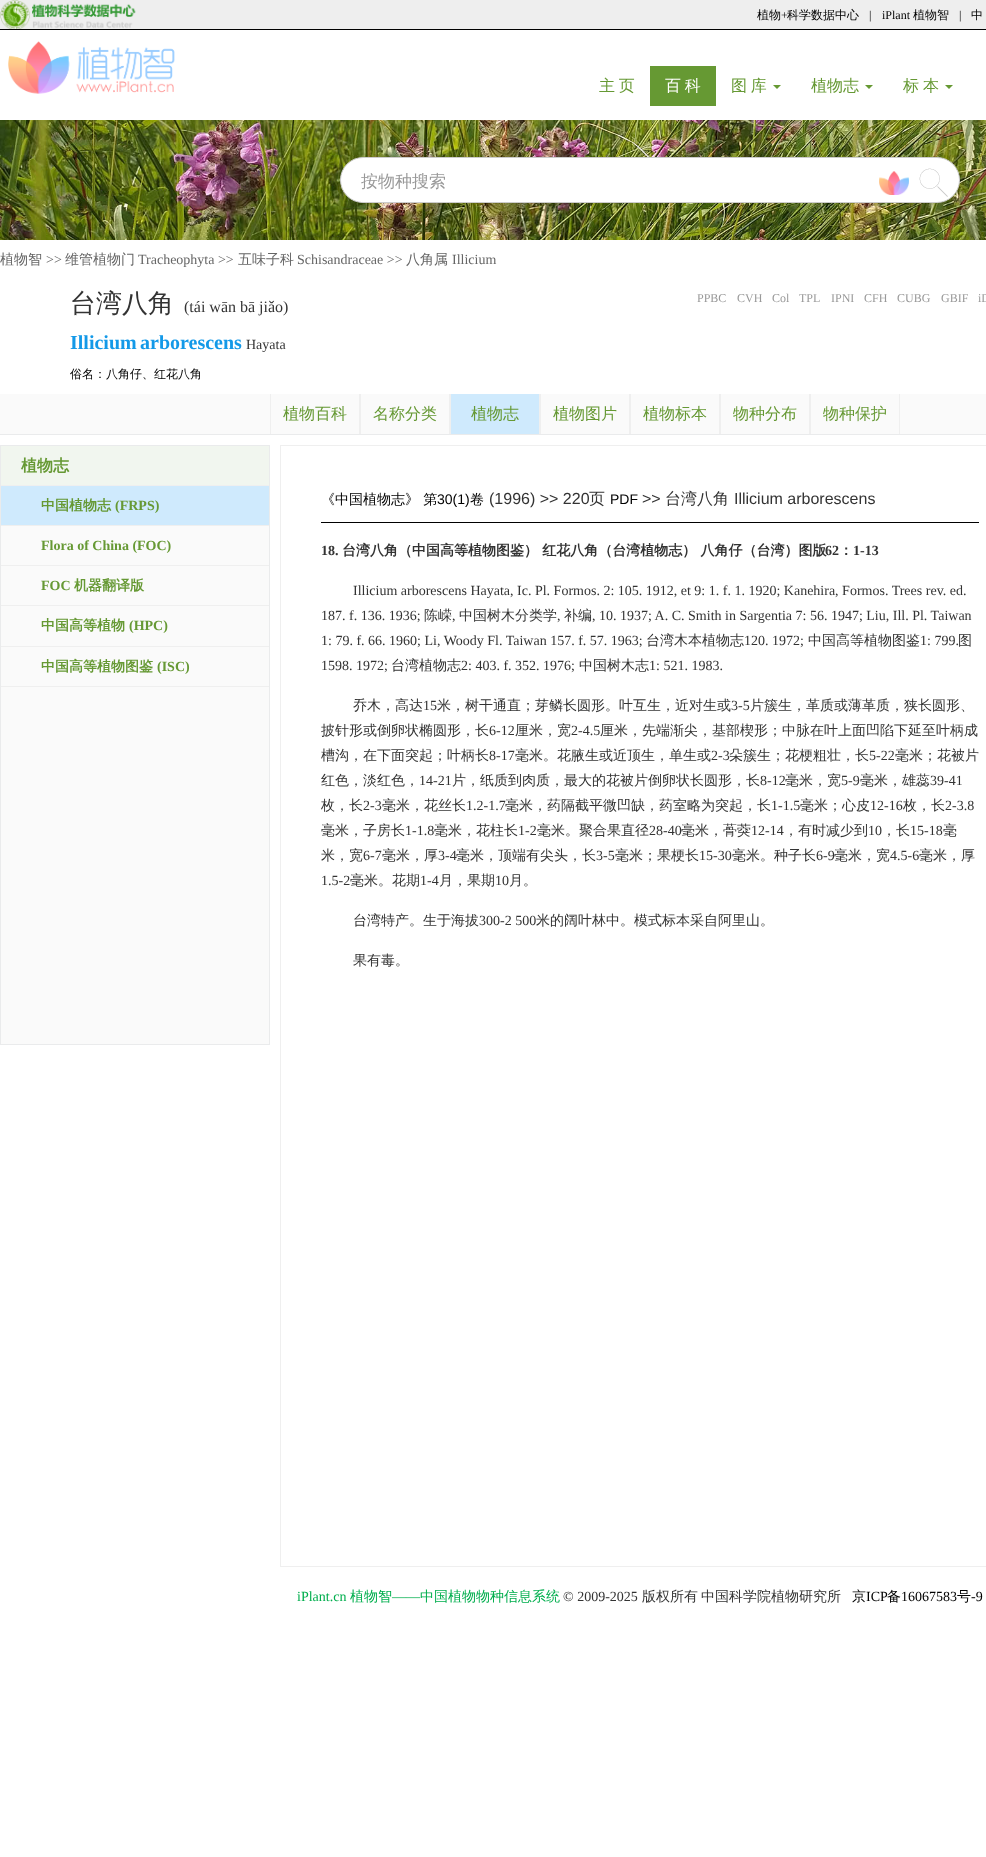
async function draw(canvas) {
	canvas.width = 986;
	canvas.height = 1857;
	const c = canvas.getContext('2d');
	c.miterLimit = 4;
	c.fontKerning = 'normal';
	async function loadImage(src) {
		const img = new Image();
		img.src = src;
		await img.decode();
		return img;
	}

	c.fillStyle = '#fff';
	c.fillRect(0, 0, 986, 1857);
	c.fillStyle = '#eee';
	c.fillRect(0, 0, 986, 29);
	c.fillStyle = '#000';
	c.fillRect(0, 29, 986, 1);
	c.drawImage(await loadImage('img1.png'), 0, 0, 136, 29);
	c.font = '500 12px WenQuanYi Zen Hei';
	c.fillText('植物', 757, 19);
	c.font = '12px Liberation Serif';
	c.fillText('+', 781, 19);
	c.font = '500 12px WenQuanYi Zen Hei';
	c.fillText('科学数据中心', 787, 19);
	c.font = '12px Liberation Serif';
	c.fillText('|', 869, 19);
	c.fillText('iPlant', 882, 19);
	c.font = '500 12px WenQuanYi Zen Hei';
	c.fillText('植物智', 913, 19);
	c.font = '12px Liberation Serif';
	c.fillText('|', 959, 19);
	c.font = '500 12px WenQuanYi Zen Hei';
	c.fillText('中', 971, 19);
	c.drawImage(await loadImage('img2.png'), 8, 41, 167, 53);
	c.wordSpacing = '-1px';
	c.font = '500 16px WenQuanYi Zen Hei';
	c.fillStyle = '#669934';
	c.fillText('主 页', 599, 91);
	c.fillStyle = '#693';
	c.fillRect(650, 66, 66, 40);
	c.fillStyle = '#fff';
	c.fillText('百 科', 665, 91);
	c.fillStyle = '#669934';
	c.fillText('图 库', 731, 91);
	c.fillStyle = '#693';
	c.beginPath();
	c.moveTo(773, 85);
	c.lineTo(781, 85);
	c.lineTo(777, 89);
	c.closePath();
	c.fill();
	c.wordSpacing = '0px';
	c.fillStyle = '#669934';
	c.fillText('植物志', 811, 91);
	c.fillStyle = '#693';
	c.beginPath();
	c.moveTo(865, 85);
	c.lineTo(873, 85);
	c.lineTo(869, 89);
	c.closePath();
	c.fill();
	c.fillStyle = '#669934';
	c.fillText('标', 903, 91);
	c.fillText('本', 923, 91);
	c.fillStyle = '#693';
	c.beginPath();
	c.moveTo(945, 85);
	c.lineTo(953, 85);
	c.lineTo(949, 89);
	c.closePath();
	c.fill();
	c.drawImage(await loadImage('img3.png'), 0, 120, 986, 120);
	c.fillStyle = '#fff';
	c.beginPath();
	c.roundRect(340.5, 157.5, 619, 45, 22.5);
	c.fill();
	c.strokeStyle = '#ccc';
	c.stroke();
	c.fillRect(361, 201, 1, 1);
	c.font = '500 17px WenQuanYi Zen Hei';
	c.fillStyle = '#999';
	c.fillText('按物种搜索', 361, 187);
	c.drawImage(await loadImage('img4.png'), 879, 171, 30, 24);
	c.drawImage(await loadImage('img5.png'), 919, 168, 29, 29);
	c.font = '500 14px WenQuanYi Zen Hei';
	c.fillStyle = '#666';
	c.fillText('植物智', 0, 264);
	c.font = '14px Liberation Serif';
	c.fillText('>>', 46, 264);
	c.font = '500 14px WenQuanYi Zen Hei';
	c.fillText('维管植物门', 65, 264);
	c.font = '14px Liberation Serif';
	c.fillText('Tracheophyta >>', 138, 264);
	c.font = '500 14px WenQuanYi Zen Hei';
	c.fillText('五味子科', 238, 264);
	c.font = '14px Liberation Serif';
	c.fillText('Schisandraceae >>', 297, 264);
	c.font = '500 14px WenQuanYi Zen Hei';
	c.fillText('八角属', 406, 264);
	c.font = '14px Liberation Serif';
	c.fillText('Illicium', 452, 264);
	c.font = '500 26px WenQuanYi Zen Hei';
	c.fillStyle = '#333';
	c.fillText('台湾八角', 70, 312);
	c.font = '16px Liberation Serif';
	c.fillText('(tái wān bā jiǎo)', 184, 312);
	c.font = '12px Liberation Serif';
	c.fillStyle = '#999';
	for (const [text, x, y] of [
		['PPBC', 697, 302],
		['CVH', 737, 302],
		['Col', 772, 302],
		['TPL', 799, 302],
		['IPNI', 831, 302],
		['CFH', 864, 302],
		['CUBG', 897, 302],
		['GBIF', 941, 302],
		['iD', 978, 302],
	]) {
		c.fillText(text, x, y);
	}
	c.font = 'bold 20px Liberation Serif';
	c.fillStyle = '#1399e8';
	c.fillText('Illicium', 70, 349);
	c.fillText('arborescens', 140, 349);
	c.font = '14px Liberation Serif';
	c.fillStyle = '#333';
	c.fillText('Hayata', 246, 349);
	c.font = '500 12px WenQuanYi Zen Hei';
	c.fillStyle = '#000';
	c.fillText('俗名：八角仔、红花八角', 70, 378);
	for (const [x, y, w, h, color] of [
		[0, 394, 986, 40, '#fafafa'],
		[0, 434, 986, 1, '#eaebec'],
		[359, 394, 2, 40, '#efefef'],
		[270, 394, 1, 40, '#efefef'],
	]) {
		c.fillStyle = color;
		c.fillRect(x, y, w, h);
	}
	c.font = '500 16px WenQuanYi Zen Hei';
	c.fillStyle = '#669934';
	c.fillText('植物百科', 283, 419);
	c.fillStyle = '#efefef';
	c.fillRect(449, 394, 2, 40);
	c.fillStyle = '#669934';
	c.fillText('名称分类', 373, 419);
	c.fillStyle = '#cfeafd';
	c.fillRect(451, 394, 88, 40);
	c.fillStyle = '#efefef';
	c.fillRect(539, 394, 2, 40);
	c.fillStyle = '#669934';
	c.fillText('植物志', 471, 419);
	c.fillStyle = '#efefef';
	c.fillRect(629, 394, 2, 40);
	c.fillStyle = '#669934';
	c.fillText('植物图片', 553, 419);
	c.fillStyle = '#efefef';
	c.fillRect(719, 394, 2, 40);
	c.fillStyle = '#669934';
	c.fillText('植物标本', 643, 419);
	c.fillStyle = '#efefef';
	c.fillRect(809, 394, 2, 40);
	c.fillStyle = '#669934';
	c.fillText('物种分布', 733, 419);
	c.fillStyle = '#efefef';
	c.fillRect(899, 394, 1, 40);
	c.fillStyle = '#669934';
	c.fillText('物种保护', 823, 419);
	c.fillStyle = '#fafafa';
	c.fillRect(1, 526, 268, 518);
	c.strokeStyle = '#eaebec';
	c.strokeRect(0.5, 445.5, 269, 599);
	c.fillStyle = '#f1f6ef';
	c.fillRect(1, 446, 268, 39);
	c.fillStyle = '#efefef';
	c.fillRect(1, 485, 268, 1);
	c.font = 'bold 16px WenQuanYi Zen Hei';
	c.fillStyle = '#669934';
	c.fillText('植物志', 21, 471);
	c.fillStyle = '#cfeafd';
	c.fillRect(1, 486, 268, 39);
	c.fillStyle = '#efefef';
	c.fillRect(1, 525, 268, 1);
	c.font = 'bold 14px WenQuanYi Zen Hei';
	c.fillStyle = '#669934';
	c.fillText('中国植物志', 41, 510);
	c.font = 'bold 14px Liberation Serif';
	c.fillText('(FRPS)', 115, 510);
	c.fillStyle = '#efefef';
	c.fillRect(1, 565, 268, 1);
	c.fillStyle = '#669934';
	c.fillText('Flora of China (FOC)', 41, 550);
	c.fillStyle = '#efefef';
	c.fillRect(1, 605, 268, 1);
	c.fillStyle = '#669934';
	c.fillText('FOC', 41, 590);
	c.font = 'bold 14px WenQuanYi Zen Hei';
	c.fillText('机器翻译版', 74, 590);
	c.fillStyle = '#efefef';
	c.fillRect(1, 646, 268, 1);
	c.fillStyle = '#669934';
	c.fillText('中国高等植物', 41, 630);
	c.font = 'bold 14px Liberation Serif';
	c.fillText('(HPC)', 129, 630);
	c.fillStyle = '#efefef';
	c.fillRect(1, 686, 268, 1);
	c.font = 'bold 14px WenQuanYi Zen Hei';
	c.fillStyle = '#669934';
	c.fillText('中国高等植物图鉴', 41, 671);
	c.font = 'bold 14px Liberation Serif';
	c.fillText('(ISC)', 157, 671);
	c.strokeStyle = '#efefef';
	c.strokeRect(280.5, 445.5, 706, 1121);
	c.fillStyle = '#000';
	c.fillRect(321, 522, 658, 1);
	c.font = '500 14px WenQuanYi Zen Hei';
	c.fillText('《中国植物志》 第', 321, 504);
	c.font = '14px Liberation Sans';
	c.fillText('30(1)', 437, 504);
	c.font = '500 14px WenQuanYi Zen Hei';
	c.fillText('卷', 470, 504);
	c.font = '16px Liberation Sans';
	c.fillStyle = '#333';
	c.fillText('(1996) >> 220', 489, 504);
	c.font = '500 16px WenQuanYi Zen Hei';
	c.fillText('页', 589, 504);
	c.font = '14px Liberation Sans';
	c.fillStyle = '#000';
	c.fillText('PDF', 610, 504);
	c.font = '16px Liberation Sans';
	c.fillStyle = '#333';
	c.fillText('>>', 642, 504);
	c.font = '500 16px WenQuanYi Zen Hei';
	c.fillText('台湾八角', 665, 504);
	c.font = '16px Liberation Sans';
	c.fillText('Illicium arborescens', 734, 504);
	c.font = 'bold 14px Liberation Serif';
	c.fillText('18.', 321, 555);
	c.font = 'bold 14px WenQuanYi Zen Hei';
	c.fillText('台湾八角（中国高等植物图鉴） 红花八角（台湾植物志） 八角仔（台湾）图版', 342, 555);
	c.font = 'bold 14px Liberation Serif';
	c.fillText('62', 825, 555);
	c.font = 'bold 14px WenQuanYi Zen Hei';
	c.fillText('：', 839, 555);
	c.font = 'bold 14px Liberation Serif';
	c.fillText('1-13', 853, 555);
	c.font = '14px Liberation Serif';
	c.fillText('Illicium arborescens Hayata, Ic. Pl. Formos. 2: 105. 1912, et 9: 1. f. 1. 1920; Kanehira, Formos. Trees rev. ed.', 353, 595);
	c.fillText('187. f. 136. 1936;', 321, 620);
	c.font = '500 14px WenQuanYi Zen Hei';
	c.fillText('陈嵘', 424, 620);
	c.font = '14px Liberation Serif';
	c.fillText(',', 452, 620);
	c.font = '500 14px WenQuanYi Zen Hei';
	c.fillText('中国树木分类学', 459, 620);
	c.font = '14px Liberation Serif';
	c.fillText(',', 557, 620);
	c.font = '500 14px WenQuanYi Zen Hei';
	c.fillText('补编', 564, 620);
	c.font = '14px Liberation Serif';
	c.fillText(', 10. 1937; A. C. Smith in Sargentia 7: 56. 1947; Liu, Ill. Pl. Taiwan', 592, 620);
	c.fillText('1: 79. f. 66. 1960; Li, Woody Fl. Taiwan 157. f. 57. 1963;', 321, 645);
	c.font = '500 14px WenQuanYi Zen Hei';
	c.fillText('台湾木本植物志', 646, 645);
	c.font = '14px Liberation Serif';
	c.fillText('120. 1972;', 744, 645);
	c.font = '500 14px WenQuanYi Zen Hei';
	c.fillText('中国高等植物图鉴', 808, 645);
	c.font = '14px Liberation Serif';
	c.fillText('1: 799.', 920, 645);
	c.font = '500 14px WenQuanYi Zen Hei';
	c.fillText('图', 958, 645);
	c.font = '14px Liberation Serif';
	c.fillText('1598. 1972;', 321, 670);
	c.font = '500 14px WenQuanYi Zen Hei';
	c.fillText('台湾植物志', 391, 670);
	c.font = '14px Liberation Serif';
	c.fillText('2: 403. f. 352. 1976;', 461, 670);
	c.font = '500 14px WenQuanYi Zen Hei';
	c.fillText('中国树木志', 579, 670);
	c.font = '14px Liberation Serif';
	c.fillText('1: 521. 1983.', 649, 670);
	c.font = '500 14px WenQuanYi Zen Hei';
	c.fillText('乔木，高达', 353, 710);
	c.font = '14px Liberation Serif';
	c.fillText('15', 423, 710);
	c.font = '500 14px WenQuanYi Zen Hei';
	c.fillText('米，树干通直；芽鳞长圆形。叶互生，近对生或', 437, 710);
	c.font = '14px Liberation Serif';
	c.fillText('3-5', 731, 710);
	c.font = '500 14px WenQuanYi Zen Hei';
	c.fillText('片簇生，革质或薄革质，狭长圆形、', 750, 710);
	c.fillText('披针形或倒卵状椭圆形，长', 321, 735);
	c.font = '14px Liberation Serif';
	c.fillText('6-12', 489, 735);
	c.font = '500 14px WenQuanYi Zen Hei';
	c.fillText('厘米，宽', 515, 735);
	c.font = '14px Liberation Serif';
	c.fillText('2-4.5', 571, 735);
	c.font = '500 14px WenQuanYi Zen Hei';
	c.fillText('厘米，先端渐尖，基部楔形；中脉在叶上面凹陷下延至叶柄成', 600, 735);
	c.fillText('槽沟，在下面突起；叶柄长', 321, 760);
	c.font = '14px Liberation Serif';
	c.fillText('8-17', 489, 760);
	c.font = '500 14px WenQuanYi Zen Hei';
	c.fillText('毫米。花腋生或近顶生，单生或', 515, 760);
	c.font = '14px Liberation Serif';
	c.fillText('2-3', 711, 760);
	c.font = '500 14px WenQuanYi Zen Hei';
	c.fillText('朵簇生；花梗粗壮，长', 729, 760);
	c.font = '14px Liberation Serif';
	c.fillText('5-22', 869, 760);
	c.font = '500 14px WenQuanYi Zen Hei';
	c.fillText('毫米；花被片', 895, 760);
	c.fillText('红色，淡红色，', 321, 785);
	c.font = '14px Liberation Serif';
	c.fillText('14-21', 419, 785);
	c.font = '500 14px WenQuanYi Zen Hei';
	c.fillText('片，纸质到肉质，最大的花被片倒卵状长圆形，长', 452, 785);
	c.font = '14px Liberation Serif';
	c.fillText('8-12', 760, 785);
	c.font = '500 14px WenQuanYi Zen Hei';
	c.fillText('毫米，宽', 785, 785);
	c.font = '14px Liberation Serif';
	c.fillText('5-9', 841, 785);
	c.font = '500 14px WenQuanYi Zen Hei';
	c.fillText('毫米，雄蕊', 860, 785);
	c.font = '14px Liberation Serif';
	c.fillText('39-41', 930, 785);
	c.font = '500 14px WenQuanYi Zen Hei';
	c.fillText('枚，长', 321, 810);
	c.font = '14px Liberation Serif';
	c.fillText('2-3', 363, 810);
	c.font = '500 14px WenQuanYi Zen Hei';
	c.fillText('毫米，花丝长', 382, 810);
	c.font = '14px Liberation Serif';
	c.fillText('1.2-1.7', 466, 810);
	c.font = '500 14px WenQuanYi Zen Hei';
	c.fillText('毫米，药隔截平微凹缺，药室略为突起，长', 505, 810);
	c.font = '14px Liberation Serif';
	c.fillText('1-1.5', 771, 810);
	c.font = '500 14px WenQuanYi Zen Hei';
	c.fillText('毫米；心皮', 800, 810);
	c.font = '14px Liberation Serif';
	c.fillText('12-16', 870, 810);
	c.font = '500 14px WenQuanYi Zen Hei';
	c.fillText('枚，长', 903, 810);
	c.font = '14px Liberation Serif';
	c.fillText('2-3.8', 945, 810);
	c.font = '500 14px WenQuanYi Zen Hei';
	c.fillText('毫米，子房长', 321, 835);
	c.font = '14px Liberation Serif';
	c.fillText('1-1.8', 405, 835);
	c.font = '500 14px WenQuanYi Zen Hei';
	c.fillText('毫米，花柱长', 434, 835);
	c.font = '14px Liberation Serif';
	c.fillText('1-2', 518, 835);
	c.font = '500 14px WenQuanYi Zen Hei';
	c.fillText('毫米。聚合果直径', 537, 835);
	c.font = '14px Liberation Serif';
	c.fillText('28-40', 649, 835);
	c.font = '500 14px WenQuanYi Zen Hei';
	c.fillText('毫米，蓇葖', 681, 835);
	c.font = '14px Liberation Serif';
	c.fillText('12-14', 751, 835);
	c.font = '500 14px WenQuanYi Zen Hei';
	c.fillText('，有时减少到', 784, 835);
	c.font = '14px Liberation Serif';
	c.fillText('10', 868, 835);
	c.font = '500 14px WenQuanYi Zen Hei';
	c.fillText('，长', 882, 835);
	c.font = '14px Liberation Serif';
	c.fillText('15-18', 910, 835);
	c.font = '500 14px WenQuanYi Zen Hei';
	c.fillText('毫', 943, 835);
	c.fillText('米，宽', 321, 860);
	c.font = '14px Liberation Serif';
	c.fillText('6-7', 363, 860);
	c.font = '500 14px WenQuanYi Zen Hei';
	c.fillText('毫米，厚', 382, 860);
	c.font = '14px Liberation Serif';
	c.fillText('3-4', 438, 860);
	c.font = '500 14px WenQuanYi Zen Hei';
	c.fillText('毫米，顶端有尖头，长', 456, 860);
	c.font = '14px Liberation Serif';
	c.fillText('3-5', 596, 860);
	c.font = '500 14px WenQuanYi Zen Hei';
	c.fillText('毫米；果梗长', 615, 860);
	c.font = '14px Liberation Serif';
	c.fillText('15-30', 699, 860);
	c.font = '500 14px WenQuanYi Zen Hei';
	c.fillText('毫米。种子长', 732, 860);
	c.font = '14px Liberation Serif';
	c.fillText('6-9', 816, 860);
	c.font = '500 14px WenQuanYi Zen Hei';
	c.fillText('毫米，宽', 834, 860);
	c.font = '14px Liberation Serif';
	c.fillText('4.5-6', 890, 860);
	c.font = '500 14px WenQuanYi Zen Hei';
	c.fillText('毫米，厚', 919, 860);
	c.font = '14px Liberation Serif';
	c.fillText('1.5-2', 321, 885);
	c.font = '500 14px WenQuanYi Zen Hei';
	c.fillText('毫米。花期', 350, 885);
	c.font = '14px Liberation Serif';
	c.fillText('1-4', 420, 885);
	c.font = '500 14px WenQuanYi Zen Hei';
	c.fillText('月，果期', 439, 885);
	c.font = '14px Liberation Serif';
	c.fillText('10', 495, 885);
	c.font = '500 14px WenQuanYi Zen Hei';
	c.fillText('月。', 509, 885);
	c.fillText('台湾特产。生于海拔', 353, 925);
	c.font = '14px Liberation Serif';
	c.fillText('300-2 500', 479, 925);
	c.font = '500 14px WenQuanYi Zen Hei';
	c.fillText('米的阔叶林中。模式标本采自阿里山。', 536, 925);
	c.fillText('果有毒。', 353, 965);
	c.font = '14px Liberation Serif';
	c.fillStyle = '#00ae4d';
	c.fillText('iPlant.cn', 297, 1601);
	c.font = '500 14px WenQuanYi Zen Hei';
	c.fillText('植物智', 350, 1601);
	c.font = '14px Liberation Serif';
	c.fillText('——', 392, 1601);
	c.font = '500 14px WenQuanYi Zen Hei';
	c.fillText('中国植物物种信息系统', 420, 1601);
	c.font = '14px Liberation Serif';
	c.fillStyle = '#333';
	c.fillText('© 2009-2025', 563, 1601);
	c.font = '500 14px WenQuanYi Zen Hei';
	c.fillText('版权所有', 642, 1601);
	c.fillText('中国科学院植物研究所', 701, 1601);
	c.fillStyle = '#000';
	c.fillText('京', 852, 1601);
	c.font = '14px Liberation Serif';
	c.fillText('ICP', 866, 1601);
	c.font = '500 14px WenQuanYi Zen Hei';
	c.fillText('备', 887, 1601);
	c.font = '14px Liberation Serif';
	c.fillText('16067583', 901, 1601);
	c.font = '500 14px WenQuanYi Zen Hei';
	c.fillText('号', 957, 1601);
	c.font = '14px Liberation Serif';
	c.fillText('-9', 971, 1601);
}

draw(document.querySelector('canvas'));
